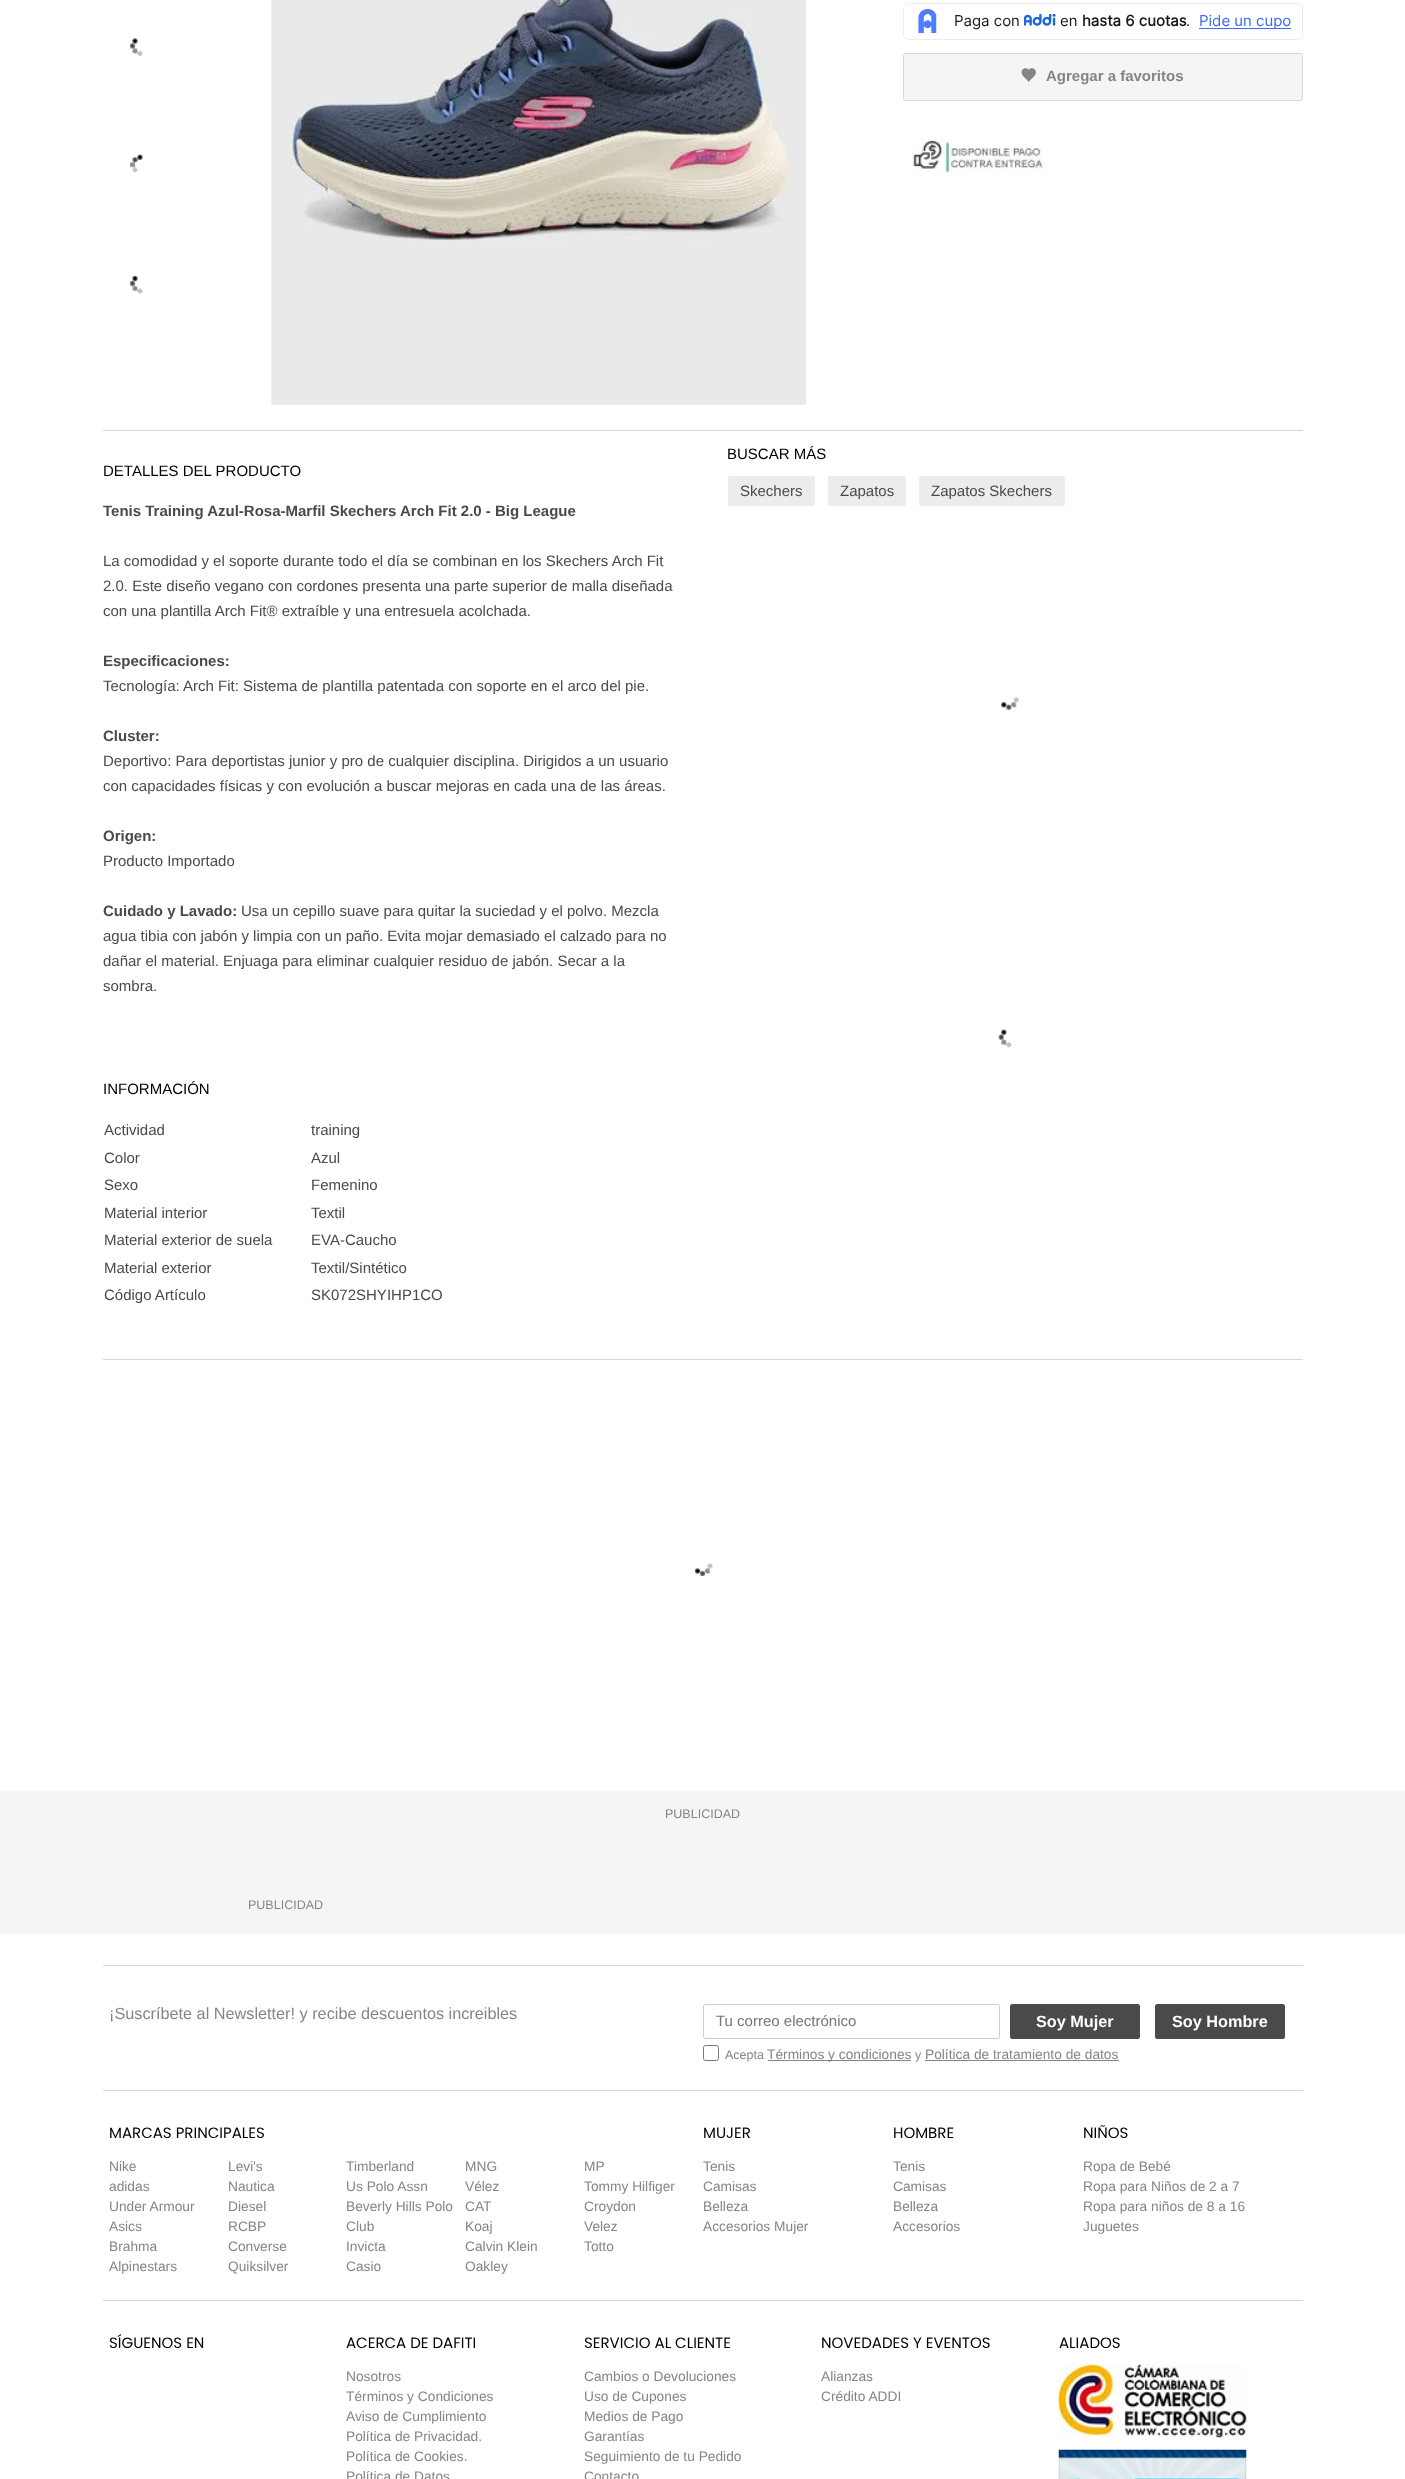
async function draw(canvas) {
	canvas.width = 1405;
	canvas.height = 2479;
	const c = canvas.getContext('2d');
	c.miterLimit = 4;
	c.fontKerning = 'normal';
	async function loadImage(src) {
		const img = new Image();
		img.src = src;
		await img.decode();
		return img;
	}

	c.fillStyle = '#fff';
	c.fillRect(0, 0, 1405, 2479);
	c.drawImage(await loadImage('img1.png'), 130, 38, 13, 18);
	c.drawImage(await loadImage('img2.png'), 130, 154, 13, 19);
	c.drawImage(await loadImage('img3.png'), 130, 275, 13, 19);
	c.drawImage(await loadImage('img4.png'), 271, 0, 536, 405);
	c.beginPath();
	c.roundRect(903.5, 3.5, 399, 36, 5.5);
	c.strokeStyle = '#ebeced';
	c.stroke();
	c.beginPath();
	c.roundRect(904, 4, 45, 35, [5, 0, 0, 5]);
	c.fill();
	c.drawImage(await loadImage('img5.png'), 918, 8, 19, 26);
	c.font = '15px Inter';
	c.fillStyle = '#18181f';
	c.fillText('Paga con', 954, 26);
	c.drawImage(await loadImage('img6.png'), 1024, 14, 32, 12);
	c.fillText('en', 1060, 26);
	c.font = 'bold 15px Inter';
	c.fillText('hasta 6 cuotas', 1082, 26);
	c.font = '15px Inter';
	c.fillText('.', 1186, 26);
	c.fillStyle = '#3c6af0';
	c.fillRect(1199, 28, 92, 1);
	c.fillText('Pide un cupo', 1199, 26);
	c.fillStyle = '#f5f5f5';
	c.beginPath();
	c.roundRect(903.5, 53.5, 399, 47, 2);
	c.fill();
	c.strokeStyle = '#d7d7d7';
	c.stroke();
	c.drawImage(await loadImage('img7.png'), 1021, 68, 15, 14);
	c.font = 'bold 15px Liberation Sans';
	c.fillStyle = '#858585';
	c.fillText('Agregar a favoritos', 1046, 81);
	c.drawImage(await loadImage('img8.png'), 913, 138, 130, 35);
	c.fillStyle = '#d7d7d7';
	c.fillRect(103, 430, 1200, 1);
	c.fillRect(103, 1359, 1200, 1);
	c.font = '15px Liberation Sans';
	c.fillStyle = '#000';
	c.fillText('DETALLES DEL PRODUCTO', 103, 476);
	c.save();
	c.beginPath();
	c.rect(103, 0, 1200, 1748);
	c.clip();
	c.font = 'bold 15px Liberation Sans';
	c.fillStyle = '#4a4a4a';
	c.fillText('Tenis Training Azul-Rosa-Marfil Skechers Arch Fit 2.0 - Big League', 103, 516);
	c.restore();
	c.fillStyle = '#4a4a4a';
	for (const [text, x, y] of [
		['La comodidad y el soporte durante todo el día se combinan en los Skechers Arch Fit', 103, 566],
		['2.0. Este diseño vegano con cordones presenta una parte superior de malla diseñada', 103, 591],
		['con una plantilla Arch Fit® extraíble y una entresuela acolchada.', 103, 616],
	]) {
		c.fillText(text, x, y);
	}
	c.font = 'bold 15px Liberation Sans';
	c.fillText('Especificaciones:', 103, 666);
	c.font = '15px Liberation Sans';
	c.fillText('Tecnología: Arch Fit: Sistema de plantilla patentada con soporte en el arco del pie.', 103, 691);
	c.font = 'bold 15px Liberation Sans';
	c.fillText('Cluster:', 103, 741);
	c.font = '15px Liberation Sans';
	c.fillText('Deportivo: Para deportistas junior y pro de cualquier disciplina. Dirigidos a un usuario', 103, 766);
	c.fillText('con capacidades físicas y con evolución a buscar mejoras en cada una de las áreas.', 103, 791);
	c.font = 'bold 15px Liberation Sans';
	c.fillText('Origen:', 103, 841);
	c.font = '15px Liberation Sans';
	c.fillText('Producto Importado', 103, 866);
	c.font = 'bold 15px Liberation Sans';
	c.fillText('Cuidado y Lavado:', 103, 916);
	c.font = '15px Liberation Sans';
	for (const [text, x, y] of [
		['Usa un cepillo suave para quitar la suciedad y el polvo. Mezcla', 241, 916],
		['agua tibia con jabón y limpia con un paño. Evita mojar demasiado el calzado para no', 103, 941],
		['dañar el material. Enjuaga para eliminar cualquier residuo de jabón. Secar a la', 103, 966],
		['sombra.', 103, 991],
	]) {
		c.fillText(text, x, y);
	}
	c.fillStyle = '#000';
	c.fillText('INFORMACIÓN', 103, 1094);
	c.fillStyle = '#4a4a4a';
	for (const [text, x, y] of [
		['Actividad', 104, 1135],
		['training', 311, 1135],
		['Color', 104, 1163],
		['Azul', 311, 1163],
		['Sexo', 104, 1190],
		['Femenino', 311, 1190],
		['Material interior', 104, 1218],
		['Textil', 311, 1218],
		['Material exterior de suela', 104, 1245],
		['EVA-Caucho', 311, 1245],
		['Material exterior', 104, 1273],
		['Textil/Sintético', 311, 1273],
		['Código Artículo', 104, 1300],
		['SK072SHYIHP1CO', 311, 1300],
	]) {
		c.fillText(text, x, y);
	}
	c.fillStyle = '#000';
	c.fillText('BUSCAR MÁS', 727, 459);
	c.fillStyle = '#ececec';
	c.beginPath();
	c.roundRect(728, 476, 87, 30, 2.5);
	c.fill();
	c.fillStyle = '#4a4a4a';
	c.fillText('Skechers', 740, 496);
	c.fillStyle = '#ececec';
	c.beginPath();
	c.roundRect(828, 476, 78, 30, 2.5);
	c.fill();
	c.fillStyle = '#4a4a4a';
	c.fillText('Zapatos', 840, 496);
	c.fillStyle = '#ececec';
	c.beginPath();
	c.roundRect(919, 476, 146, 30, 2.5);
	c.fill();
	c.fillStyle = '#4a4a4a';
	c.fillText('Zapatos Skechers', 931, 496);
	c.drawImage(await loadImage('img9.png'), 1001, 697, 18, 13);
	c.drawImage(await loadImage('img10.png'), 998, 1029, 14, 19);
	c.drawImage(await loadImage('img11.png'), 694, 1563, 19, 13);
	c.fillStyle = '#f5f5f5';
	c.fillRect(0, 1791, 1405, 143);
	c.font = '12.5px Liberation Sans';
	c.fillStyle = '#858585';
	c.fillText('PUBLICIDAD', 665, 1818);
	c.fillText('PUBLICIDAD', 248, 1909);
	c.fillStyle = '#d5d5d5';
	c.fillRect(103, 1965, 1200, 1);
	c.font = '16.25px Liberation Sans';
	c.fillStyle = '#858585';
	c.fillText('¡Suscríbete al Newsletter! y recibe descuentos increibles', 109, 2019);
	c.beginPath();
	c.roundRect(703.5, 2004.5, 296, 34, 2);
	c.strokeStyle = '#ccc';
	c.stroke();
	c.font = '15px Liberation Sans';
	c.fillStyle = '#757575';
	c.fillText('Tu correo electrónico', 716, 2026);
	c.fillStyle = '#4a4a4a';
	c.beginPath();
	c.roundRect(1010, 2004, 130, 35, 2.5);
	c.fill();
	c.font = 'bold 16.25px Liberation Sans';
	c.fillStyle = '#fff';
	c.fillText('Soy Mujer', 1036, 2027);
	c.fillStyle = '#4a4a4a';
	c.beginPath();
	c.roundRect(1155, 2004, 130, 35, 2.5);
	c.fill();
	c.fillStyle = '#fff';
	c.fillText('Soy Hombre', 1172, 2027);
	c.beginPath();
	c.roundRect(703.5, 2045.5, 15, 15, 2);
	c.strokeStyle = '#767676';
	c.stroke();
	c.font = '12.5px Liberation Sans';
	c.fillStyle = '#858585';
	c.fillText('Acepta', 725, 2059);
	c.fillRect(768, 2060, 143, 1);
	c.font = '13.75px Liberation Sans';
	c.fillText('Términos y condiciones', 767, 2059);
	c.font = '12.5px Liberation Sans';
	c.fillText('y', 915, 2059);
	c.font = '13.75px Liberation Sans';
	c.fillText('Política de tratamiento de datos', 925, 2059);
	c.fillRect(925, 2060, 194, 1);
	c.fillStyle = '#d5d5d5';
	c.fillRect(103, 2090, 1200, 1);
	c.font = '15px Poppins';
	c.fillStyle = '#000';
	c.fillText('MARCAS PRINCIPALES', 109, 2138);
	c.font = '13.75px Liberation Sans';
	c.fillStyle = '#858585';
	for (const [text, x, y] of [
		['Nike', 109, 2171],
		['adidas', 109, 2191],
		['Under Armour', 109, 2211],
		['Asics', 109, 2231],
		['Brahma', 109, 2251],
		['Alpinestars', 109, 2271],
		['Levi\'s', 228, 2171],
		['Nautica', 228, 2191],
		['Diesel', 228, 2211],
		['RCBP', 228, 2231],
		['Converse', 228, 2251],
		['Quiksilver', 228, 2271],
		['Timberland', 346, 2171],
		['Us Polo Assn', 346, 2191],
		['Beverly Hills Polo', 346, 2211],
		['Club', 346, 2231],
		['Invicta', 346, 2251],
		['Casio', 346, 2271],
		['MNG', 465, 2171],
		['Vélez', 465, 2191],
		['CAT', 465, 2211],
		['Koaj', 465, 2231],
		['Calvin Klein', 465, 2251],
		['Oakley', 465, 2271],
		['MP', 584, 2171],
		['Tommy Hilfiger', 584, 2191],
		['Croydon', 584, 2211],
		['Velez', 584, 2231],
		['Totto', 584, 2251],
	]) {
		c.fillText(text, x, y);
	}
	c.font = '15px Poppins';
	c.fillStyle = '#000';
	c.fillText('MUJER', 703, 2138);
	c.font = '13.75px Liberation Sans';
	c.fillStyle = '#858585';
	for (const [text, x, y] of [
		['Tenis', 703, 2171],
		['Camisas', 703, 2191],
		['Belleza', 703, 2211],
		['Accesorios Mujer', 703, 2231],
	]) {
		c.fillText(text, x, y);
	}
	c.font = '15px Poppins';
	c.fillStyle = '#000';
	c.fillText('HOMBRE', 893, 2138);
	c.font = '13.75px Liberation Sans';
	c.fillStyle = '#858585';
	for (const [text, x, y] of [
		['Tenis', 893, 2171],
		['Camisas', 893, 2191],
		['Belleza', 893, 2211],
		['Accesorios', 893, 2231],
	]) {
		c.fillText(text, x, y);
	}
	c.font = '15px Poppins';
	c.fillStyle = '#000';
	c.fillText('NIÑOS', 1083, 2138);
	c.font = '13.75px Liberation Sans';
	c.fillStyle = '#858585';
	for (const [text, x, y] of [
		['Ropa de Bebé', 1083, 2171],
		['Ropa para Niños de 2 a 7', 1083, 2191],
		['Ropa para niños de 8 a 16', 1083, 2211],
		['Juguetes', 1083, 2231],
	]) {
		c.fillText(text, x, y);
	}
	c.fillStyle = '#d5d5d5';
	c.fillRect(103, 2300, 1200, 1);
	c.font = '15px Poppins';
	c.fillStyle = '#000';
	c.fillText('SÍGUENOS EN', 109, 2348);
	c.fillText('ACERCA DE DAFITI', 346, 2348);
	c.font = '13.75px Liberation Sans';
	c.fillStyle = '#858585';
	for (const [text, x, y] of [
		['Nosotros', 346, 2381],
		['Términos y Condiciones', 346, 2401],
		['Aviso de Cumplimiento', 346, 2421],
		['Política de Privacidad.', 346, 2441],
		['Política de Cookies.', 346, 2461],
		['Política de Datos', 346, 2481],
	]) {
		c.fillText(text, x, y);
	}
	c.font = '15px Poppins';
	c.fillStyle = '#000';
	c.fillText('SERVICIO AL CLIENTE', 584, 2348);
	c.font = '13.75px Liberation Sans';
	c.fillStyle = '#858585';
	for (const [text, x, y] of [
		['Cambios o Devoluciones', 584, 2381],
		['Uso de Cupones', 584, 2401],
		['Medios de Pago', 584, 2421],
		['Garantías', 584, 2441],
		['Seguimiento de tu Pedido', 584, 2461],
		['Contacto', 584, 2481],
	]) {
		c.fillText(text, x, y);
	}
	c.font = '15px Poppins';
	c.fillStyle = '#000';
	c.fillText('NOVEDADES Y EVENTOS', 821, 2348);
	c.font = '13.75px Liberation Sans';
	c.fillStyle = '#858585';
	c.fillText('Alianzas', 821, 2381);
	c.fillText('Crédito ADDI', 821, 2401);
	c.font = '15px Poppins';
	c.fillStyle = '#000';
	c.fillText('ALIADOS', 1059, 2348);
	c.drawImage(await loadImage('img12.png'), 1058, 2364, 189, 74);
	c.drawImage(await loadImage('img13.png'), 1058, 2449, 189, 30);
}

draw(document.querySelector('canvas'));
